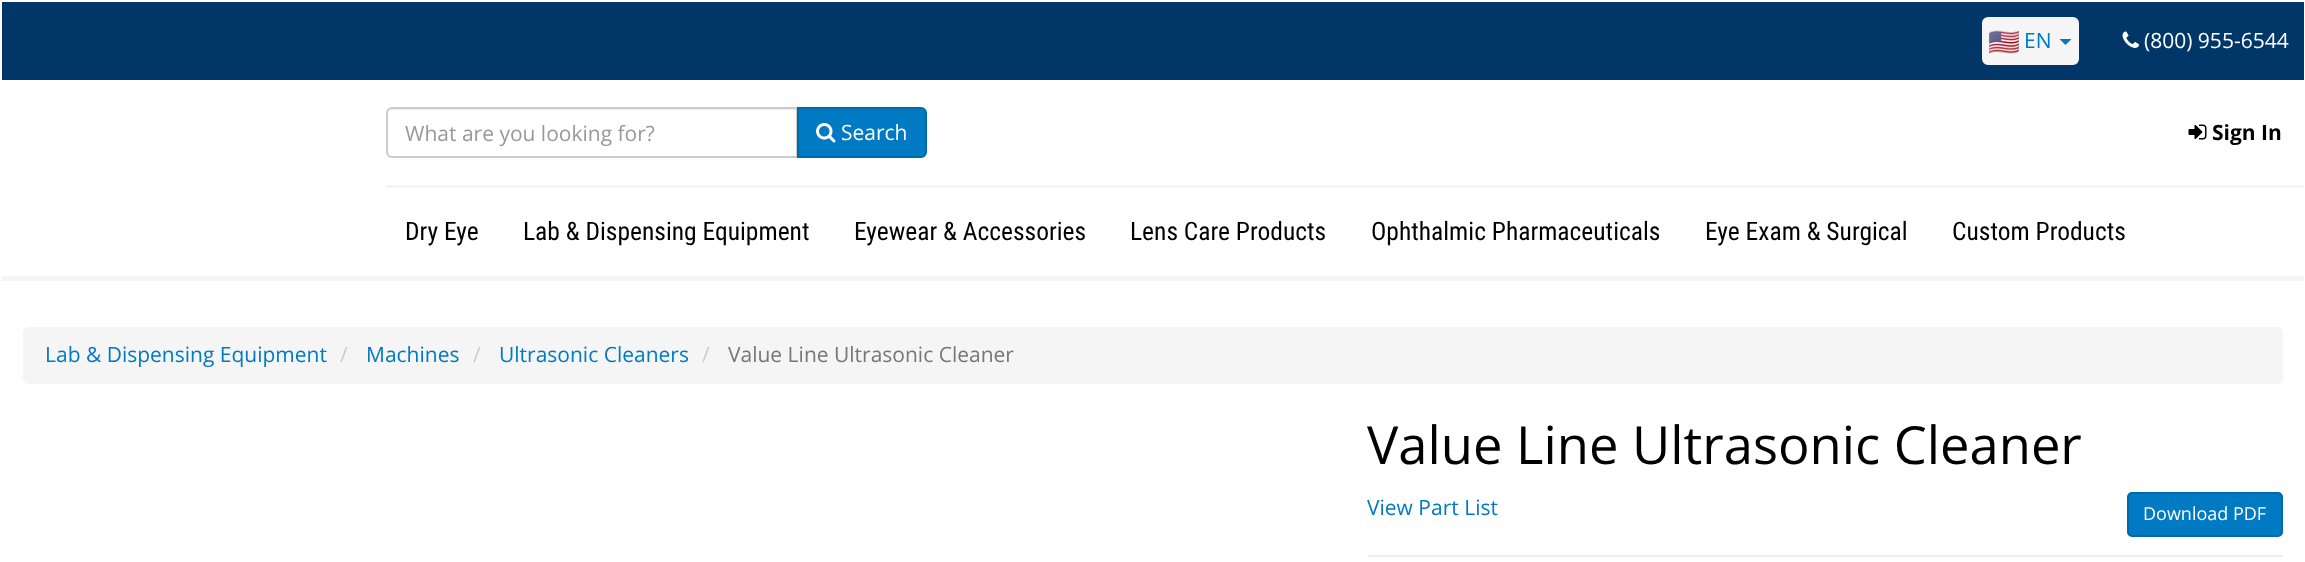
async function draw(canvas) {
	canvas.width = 2305;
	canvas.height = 562;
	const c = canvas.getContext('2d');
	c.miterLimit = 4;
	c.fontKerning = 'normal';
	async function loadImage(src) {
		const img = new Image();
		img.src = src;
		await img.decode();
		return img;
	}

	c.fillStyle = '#fff';
	c.fillRect(0, 0, 2305, 562);
	c.fillStyle = '#003768';
	c.fillRect(2, 2, 2302, 78);
	c.fillStyle = '#f5f5f5';
	c.beginPath();
	c.roundRect(1983, 18, 95, 46, 5);
	c.fill();
	c.strokeStyle = '#f5f5f5';
	c.lineWidth = 2;
	c.stroke();
	c.drawImage(await loadImage('img1.png'), 1989, 30, 30, 24);
	c.font = '21px Open Sans';
	c.fillStyle = '#007ac2';
	c.fillText('EN', 2024, 48);
	c.beginPath();
	c.moveTo(2059.5, 39);
	c.lineTo(2071.5, 39);
	c.lineTo(2065.5, 45);
	c.closePath();
	c.fill();
	c.drawImage(await loadImage('img2.png'), 2122, 31, 17, 17);
	c.fillStyle = '#fff';
	c.fillText('(800) 955-6544', 2144, 48);
	c.fillStyle = '#f5f5f5';
	c.fillRect(2, 276, 2302, 5);
	c.fillStyle = '#ececec';
	c.beginPath();
	c.moveTo(392, 110);
	c.lineTo(796, 110);
	c.lineTo(796, 156);
	c.lineTo(797, 156);
	c.lineTo(797, 108);
	c.lineTo(392, 108);
	c.bezierCurveTo(389, 108, 387, 111, 387, 114);
	c.bezierCurveTo(387, 112, 389, 110, 392, 110);
	c.closePath();
	c.fill();
	c.beginPath();
	c.roundRect(387, 108, 410, 49, [5, 0, 0, 5]);
	c.strokeStyle = '#ccc';
	c.stroke();
	c.fillStyle = '#999';
	c.fillText('What are you looking for?', 405, 141);
	c.fillStyle = '#007ac2';
	c.beginPath();
	c.roundRect(798, 108, 128, 49, [0, 5, 5, 0]);
	c.fill();
	c.strokeStyle = '#006aa9';
	c.stroke();
	c.drawImage(await loadImage('img3.png'), 816, 123, 20, 20);
	c.fillStyle = '#fff';
	c.fillText('Search', 841, 140);
	c.drawImage(await loadImage('img4.png'), 2188, 124, 19, 16);
	c.font = 'bold 21px Open Sans';
	c.fillStyle = '#000';
	c.fillText('Sign In', 2212, 140);
	c.fillStyle = '#f5f5f5';
	c.fillRect(386, 185, 1918, 3);
	c.font = '25.5px Roboto Condensed';
	c.fillStyle = '#000';
	for (const [text, x, y] of [
		['Dry Eye', 405, 240],
		['Lab & Dispensing Equipment', 523, 240],
		['Eyewear & Accessories', 854, 240],
		['Lens Care Products', 1130, 240],
		['Ophthalmic Pharmaceuticals', 1371, 240],
		['Eye Exam & Surgical', 1705, 240],
		['Custom Products', 1952, 240],
	]) {
		c.fillText(text, x, y);
	}
	c.fillStyle = '#f5f5f5';
	c.beginPath();
	c.roundRect(23, 327, 2260, 57, 6);
	c.fill();
	c.font = '21px Open Sans';
	c.fillStyle = '#007ac2';
	c.fillText('Lab & Dispensing Equipment', 45, 362);
	c.fillStyle = '#ccc';
	c.fillText('/', 340, 362);
	c.fillStyle = '#007ac2';
	c.fillText('Machines', 366, 362);
	c.fillStyle = '#ccc';
	c.fillText('/', 473, 362);
	c.fillStyle = '#007ac2';
	c.fillText('Ultrasonic Cleaners', 499, 362);
	c.fillStyle = '#ccc';
	c.fillText('/', 702, 362);
	c.fillStyle = '#777';
	c.fillText('Value Line Ultrasonic Cleaner', 728, 362);
	c.font = '52.5px Open Sans';
	c.fillStyle = '#000';
	c.fillText('Value Line Ultrasonic Cleaner', 1367, 464);
	c.font = '21px Open Sans';
	c.fillStyle = '#007ac2';
	c.fillText('View Part List', 1367, 515);
	c.beginPath();
	c.roundRect(2128, 493, 154, 43, 4);
	c.fill();
	c.stroke();
	c.font = '18px Open Sans';
	c.fillStyle = '#fff';
	c.fillText('Download PDF', 2143, 520);
	c.fillStyle = '#eee';
	c.fillRect(1368, 555, 915, 2);
}

draw(document.querySelector('canvas'));
